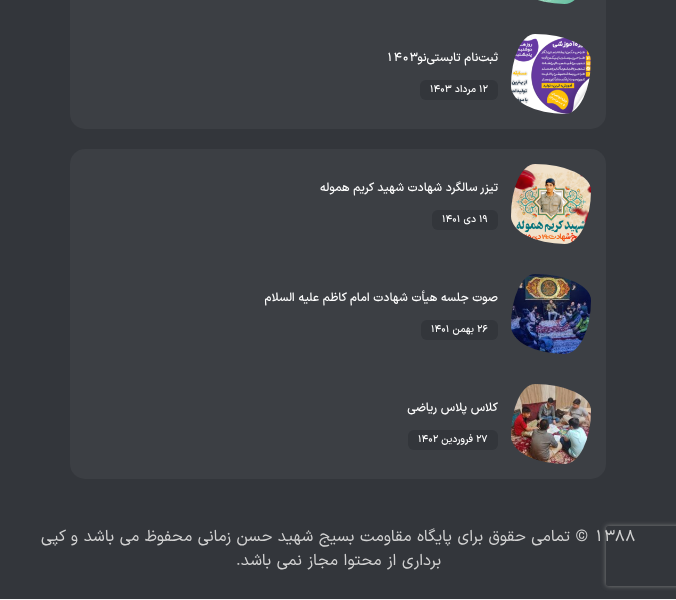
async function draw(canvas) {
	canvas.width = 676;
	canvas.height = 600;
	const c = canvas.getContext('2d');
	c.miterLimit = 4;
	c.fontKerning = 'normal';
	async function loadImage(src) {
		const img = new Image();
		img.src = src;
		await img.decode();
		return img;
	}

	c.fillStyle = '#f9f9f9';
	c.fillRect(0, 0, 676, 600);
	c.fillStyle = '#33363b';
	c.fillRect(0, 0, 676, 599);
	c.save();
	c.beginPath();
	c.moveTo(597, 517);
	c.lineTo(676, 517);
	c.lineTo(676, 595);
	c.lineTo(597, 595);
	c.closePath();
	c.moveTo(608, 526);
	c.lineTo(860, 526);
	c.bezierCurveTo(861, 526, 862, 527, 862, 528);
	c.lineTo(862, 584);
	c.bezierCurveTo(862, 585, 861, 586, 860, 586);
	c.lineTo(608, 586);
	c.bezierCurveTo(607, 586, 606, 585, 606, 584);
	c.lineTo(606, 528);
	c.bezierCurveTo(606, 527, 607, 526, 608, 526);
	c.closePath();
	c.clip('evenodd');
	c.fillStyle = '#808080';
	c.filter = 'blur(2.5px)';
	c.beginPath();
	c.roundRect(606, 526, 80, 60, 2);
	c.fill();
	c.filter = 'none';
	c.restore();
	c.fillStyle = '#3c3f44';
	c.beginPath();
	c.roundRect(70, -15, 536, 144, 15);
	c.fill();
	c.drawImage(await loadImage('img1.png'), 538, 0, 37, 4);
	c.drawImage(await loadImage('img2.png'), 511, 34, 80, 80);
	c.font = '500 12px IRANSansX';
	c.fillStyle = '#fff';
	c.fillText('1403', 386, 61);
	c.direction = 'rtl';
	c.fillText('ثبت‌نام تابستی‌نو', 498, 61);
	c.fillStyle = '#33363b';
	c.beginPath();
	c.roundRect(420, 80, 78, 20, 6);
	c.fill();
	c.direction = 'ltr';
	c.font = '500 10px IRANSansX';
	c.fillStyle = '#fff';
	c.fillText('۱۲', 479, 92);
	c.direction = 'rtl';
	c.fillText('مرداد', 476, 92);
	c.direction = 'ltr';
	c.fillText('۱۴۰۳', 430, 92);
	c.fillStyle = '#3c3f44';
	c.beginPath();
	c.roundRect(70, 149, 536, 330, 15);
	c.fill();
	c.drawImage(await loadImage('img3.png'), 511, 164, 80, 80);
	c.direction = 'rtl';
	c.font = '500 12px IRANSansX';
	c.fillStyle = '#fff';
	c.fillText('تیزر سالگرد شهادت شهید کریم هموله', 498, 191);
	c.fillStyle = '#33363b';
	c.beginPath();
	c.roundRect(432, 210, 66, 20, 6);
	c.fill();
	c.direction = 'ltr';
	c.font = '500 10px IRANSansX';
	c.fillStyle = '#fff';
	c.fillText('۱۹', 479, 222);
	c.direction = 'rtl';
	c.fillText('دی', 476, 222);
	c.direction = 'ltr';
	c.fillText('۱۴۰۱', 442, 222);
	c.drawImage(await loadImage('img4.png'), 511, 274, 80, 80);
	c.direction = 'rtl';
	c.font = '500 12px IRANSansX';
	c.fillText('صوت جلسه هیأت شهادت امام کاظم علیه السلام', 498, 301);
	c.fillStyle = '#33363b';
	c.beginPath();
	c.roundRect(421, 320, 77, 20, 6);
	c.fill();
	c.direction = 'ltr';
	c.font = '500 10px IRANSansX';
	c.fillStyle = '#fff';
	c.fillText('۲۶', 477, 332);
	c.direction = 'rtl';
	c.fillText('بهمن', 474, 332);
	c.direction = 'ltr';
	c.fillText('۱۴۰۱', 431, 332);
	c.drawImage(await loadImage('img5.png'), 511, 384, 80, 80);
	c.direction = 'rtl';
	c.font = '500 12px IRANSansX';
	c.fillText('کلاس پلاس ریاضی', 498, 411);
	c.fillStyle = '#33363b';
	c.beginPath();
	c.roundRect(408, 430, 90, 20, 6);
	c.fill();
	c.direction = 'ltr';
	c.font = '500 10px IRANSansX';
	c.fillStyle = '#fff';
	c.fillText('۲۷', 476, 442);
	c.direction = 'rtl';
	c.fillText('فروردین', 473, 442);
	c.direction = 'ltr';
	c.fillText('۱۴۰۲', 418, 442);
	c.font = '16px IRANSansX';
	c.fillStyle = '#d2d2d2';
	c.fillText('1388', 594, 541);
	c.direction = 'rtl';
	c.fillText('© تمامی حقوق برای پایگاه مقاومت بسیج شهید حسن زمانی محفوظ می باشد و کپی', 588, 541);
	c.fillText('برداری از محتوا مجاز نمی باشد.', 441, 565);
}

draw(document.querySelector('canvas'));
